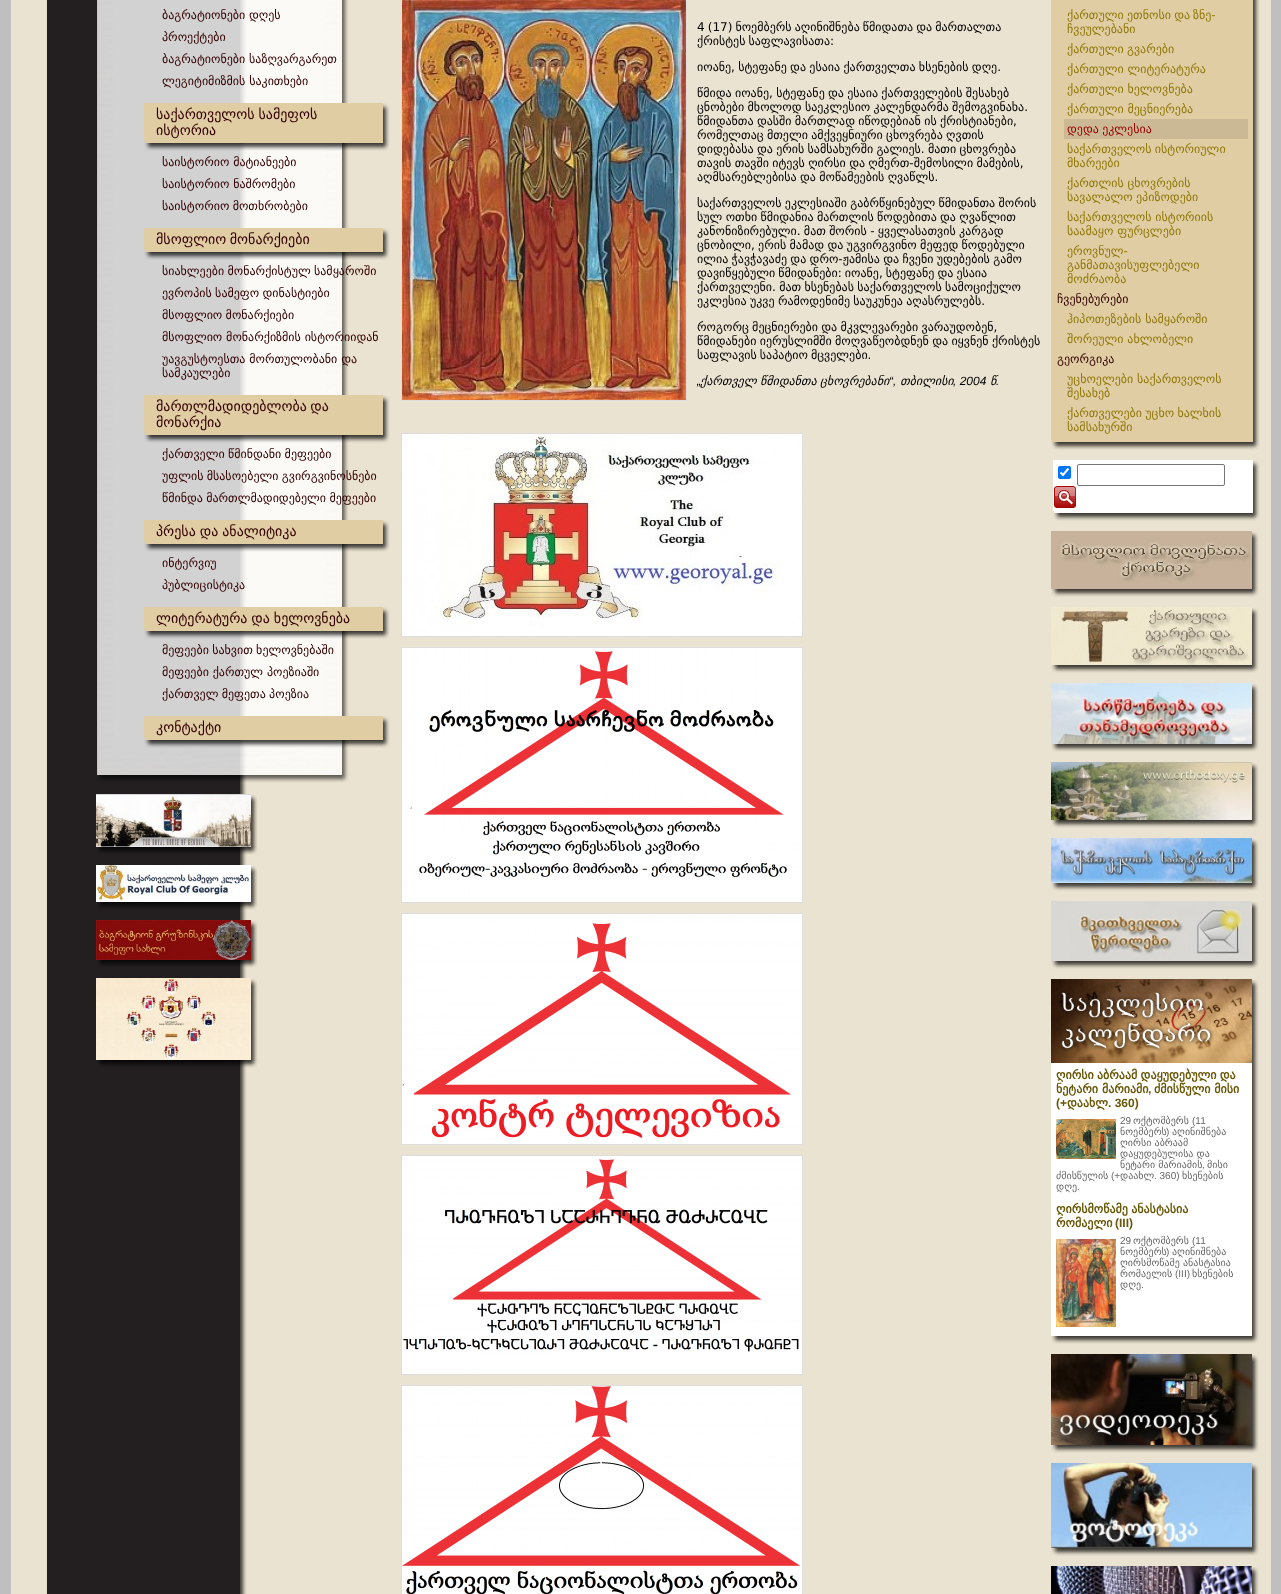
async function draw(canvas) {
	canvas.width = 1281;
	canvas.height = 1594;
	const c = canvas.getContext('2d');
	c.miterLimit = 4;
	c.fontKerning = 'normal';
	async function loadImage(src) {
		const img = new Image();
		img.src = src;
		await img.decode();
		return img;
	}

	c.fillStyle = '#bfbfbf';
	c.fillRect(0, 0, 1281, 1594);
	c.drawImage(await loadImage('img1.png'), 11, 0, 1260, 1594);
	c.drawImage(await loadImage('img2.png'), 97, 0, 252, 783);
	c.font = '12px DejaVu Sans';
	c.fillStyle = '#300';
	for (const [text, x, y] of [
		['ბაგრატიონები დღეს', 162, 19],
		['პროექტები', 162, 41],
		['ბაგრატიონები საზღვარგარეთ', 162, 63],
		['ლეგიტიმიზმის საკითხები', 162, 85],
	]) {
		c.fillText(text, x, y);
	}
	c.fillStyle = '#e0cda4';
	c.fillRect(144, 103, 237, 38);
	c.wordSpacing = '-0.5px';
	c.font = '14px DejaVu Sans';
	c.fillStyle = '#300';
	c.fillText('საქართველოს სამეფოს', 156, 119);
	c.wordSpacing = '0px';
	c.fillText('ისტორია', 156, 135);
	c.drawImage(await loadImage('img3.png'), 381, 103, 9, 38);
	c.drawImage(await loadImage('img4.png'), 144, 141, 237, 10);
	c.drawImage(await loadImage('img5.png'), 381, 141, 9, 10);
	c.font = '12px DejaVu Sans';
	c.fillText('საისტორიო მატიანეები', 162, 166);
	c.fillText('საისტორიო ნაშრომები', 162, 188);
	c.wordSpacing = '-0.5px';
	c.fillText('საისტორიო მოთხრობები', 162, 210);
	c.fillStyle = '#e0cda4';
	c.fillRect(144, 228, 237, 22);
	c.wordSpacing = '-1px';
	c.font = '14px DejaVu Sans';
	c.fillStyle = '#300';
	c.fillText('მსოფლიო მონარქიები', 156, 244);
	c.drawImage(await loadImage('img6.png'), 381, 228, 9, 22);
	c.drawImage(await loadImage('img7.png'), 144, 250, 237, 10);
	c.drawImage(await loadImage('img5.png'), 381, 250, 9, 10);
	c.wordSpacing = '-0.5px';
	c.font = '12px DejaVu Sans';
	for (const [text, x, y] of [
		['სიახლეები მონარქისტულ სამყაროში', 162, 275],
		['ევროპის სამეფო დინასტიები', 162, 297],
		['მსოფლიო მონარქიები', 162, 319],
	]) {
		c.fillText(text, x, y);
	}
	c.wordSpacing = '0px';
	for (const [text, x, y] of [
		['მსოფლიო მონარქიზმის ისტორიიდან', 162, 341],
		['უავგუსტოესთა მორთულობანი და', 162, 363],
		['სამკაულები', 162, 377],
	]) {
		c.fillText(text, x, y);
	}
	c.fillStyle = '#e0cda4';
	c.fillRect(144, 395, 237, 38);
	c.wordSpacing = '-1px';
	c.font = '14px DejaVu Sans';
	c.fillStyle = '#300';
	c.fillText('მართლმადიდებლობა და', 156, 411);
	c.wordSpacing = '0px';
	c.fillText('მონარქია', 156, 427);
	c.drawImage(await loadImage('img3.png'), 381, 395, 9, 38);
	c.drawImage(await loadImage('img8.png'), 144, 433, 237, 10);
	c.drawImage(await loadImage('img5.png'), 381, 433, 9, 10);
	c.wordSpacing = '-0.5px';
	c.font = '12px DejaVu Sans';
	for (const [text, x, y] of [
		['ქართველი წმინდანი მეფეები', 162, 458],
		['უფლის მსასოებელი გვირგვინოსნები', 162, 480],
		['წმინდა მართლმადიდებელი მეფეები', 162, 502],
	]) {
		c.fillText(text, x, y);
	}
	c.fillStyle = '#e0cda4';
	c.fillRect(144, 520, 237, 22);
	c.font = '14px DejaVu Sans';
	c.fillStyle = '#300';
	c.fillText('პრესა და ანალიტიკა', 156, 536);
	c.drawImage(await loadImage('img6.png'), 381, 520, 9, 22);
	c.drawImage(await loadImage('img9.png'), 144, 542, 237, 10);
	c.drawImage(await loadImage('img5.png'), 381, 542, 9, 10);
	c.wordSpacing = '0px';
	c.font = '12px DejaVu Sans';
	c.fillText('ინტერვიუ', 162, 567);
	c.fillText('პუბლიცისტიკა', 162, 589);
	c.fillStyle = '#e0cda4';
	c.fillRect(144, 607, 237, 22);
	c.wordSpacing = '-0.5px';
	c.font = '14px DejaVu Sans';
	c.fillStyle = '#300';
	c.fillText('ლიტერატურა და ხელოვნება', 156, 623);
	c.drawImage(await loadImage('img6.png'), 381, 607, 9, 22);
	c.drawImage(await loadImage('img10.png'), 144, 629, 237, 10);
	c.drawImage(await loadImage('img5.png'), 381, 629, 9, 10);
	c.font = '12px DejaVu Sans';
	c.fillText('მეფეები სახვით ხელოვნებაში', 162, 654);
	c.wordSpacing = '0px';
	c.fillText('მეფეები ქართულ პოეზიაში', 162, 676);
	c.wordSpacing = '-0.5px';
	c.fillText('ქართველ მეფეთა პოეზია', 162, 698);
	c.fillStyle = '#e0cda4';
	c.fillRect(144, 716, 237, 22);
	c.wordSpacing = '0px';
	c.font = '14px DejaVu Sans';
	c.fillStyle = '#300';
	c.fillText('კონტაქტი', 156, 732);
	c.drawImage(await loadImage('img6.png'), 381, 716, 9, 22);
	c.drawImage(await loadImage('img11.png'), 144, 738, 237, 10);
	c.drawImage(await loadImage('img5.png'), 381, 738, 9, 10);
	c.drawImage(await loadImage('img12.png'), 96, 794, 155, 53);
	c.drawImage(await loadImage('img13.png'), 251, 795, 7, 52);
	c.drawImage(await loadImage('img14.png'), 98, 847, 153, 8);
	c.drawImage(await loadImage('img15.png'), 251, 847, 7, 8);
	c.drawImage(await loadImage('img16.png'), 96, 865, 155, 37);
	c.drawImage(await loadImage('img17.png'), 251, 866, 7, 36);
	c.drawImage(await loadImage('img14.png'), 98, 902, 153, 8);
	c.drawImage(await loadImage('img15.png'), 251, 902, 7, 8);
	c.drawImage(await loadImage('img18.png'), 96, 920, 155, 40);
	c.drawImage(await loadImage('img19.png'), 251, 921, 7, 39);
	c.drawImage(await loadImage('img14.png'), 98, 960, 153, 8);
	c.drawImage(await loadImage('img15.png'), 251, 960, 7, 8);
	c.drawImage(await loadImage('img20.png'), 96, 978, 155, 82);
	c.drawImage(await loadImage('img21.png'), 251, 979, 7, 81);
	c.drawImage(await loadImage('img14.png'), 98, 1060, 153, 8);
	c.drawImage(await loadImage('img15.png'), 251, 1060, 7, 8);
	c.strokeStyle = '#ddd';
	c.strokeRect(401.5, -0.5, 285, 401);
	c.drawImage(await loadImage('img22.png'), 402, 0, 284, 400);
	c.wordSpacing = '-0.75px';
	c.font = '12px DejaVu Sans';
	c.fillStyle = '#000';
	c.fillText('4 (17) ნოემბერს აღინიშნება წმიდათა და მართალთა', 697, 31);
	c.fillText('ქრისტეს საფლავისათა:', 697, 45);
	c.wordSpacing = '-0.5px';
	for (const [text, x, y] of [
		['იოანე, სტეფანე და ესაია ქართველთა ხსენების დღე.', 697, 71],
		['წმიდა იოანე, სტეფანე და ესაია ქართველების შესახებ', 697, 97],
		['ცნობები მხოლოდ საეკლესიო კალენდარმა შემოგვინახა.', 697, 111],
		['წმიდანთა დასში მართლად იწოდებიან ის ქრისტიანები,', 697, 125],
		['რომელთაც მთელი ამქვეყნიური ცხოვრება ღვთის', 697, 139],
		['დიდებასა და ერის სამსახურში გალიეს. მათი ცხოვრება', 697, 153],
		['თავის თავში იტევს ღირსი და ღმერთ-შემოსილი მამების,', 697, 167],
		['აღმსარებლებისა და მოწამეების ღვაწლს.', 697, 181],
		['საქართველოს ეკლესიაში გაბრწყინებულ წმიდანთა შორის', 697, 207],
		['სულ ოთხი წმიდანია მართლის წოდებითა და ღვაწლით', 697, 221],
		['კანონიზირებული. მათ შორის - ყველასათვის კარგად', 697, 235],
		['ცნობილი, ერის მამად და უგვირგვინო მეფედ წოდებული', 697, 249],
		['ილია ჭავჭავაძე და დრო-ჟამისა და ჩვენი უდებების გამო', 697, 263],
	]) {
		c.fillText(text, x, y);
	}
	c.wordSpacing = '-0.75px';
	c.fillText('დავიწყებული წმიდანები: იოანე, სტეფანე და ესაია', 697, 277);
	c.wordSpacing = '-0.5px';
	for (const [text, x, y] of [
		['ქართველენი. მათ ხსენებას საქართველოს სამოციქულო', 697, 291],
		['ეკლესია უკვე რამოდენიმე საუკუნეა აღასრულებს.', 697, 305],
		['როგორც მეცნიერები და მკვლევარები ვარაუდობენ,', 697, 331],
		['წმიდანები იერუსლიმში მოღვაწეობდნენ და იყვნენ ქრისტეს', 697, 345],
	]) {
		c.fillText(text, x, y);
	}
	c.wordSpacing = '-0.75px';
	c.fillText('საფლავის საპატიო მცველები.', 697, 359);
	c.wordSpacing = '0px';
	c.font = 'italic 12px Liberation Sans';
	c.fillText('„', 697, 385);
	c.font = 'italic 12px DejaVu Sans';
	for (const [text, x, y] of [
		['ქართველ', 700, 385],
		['წმიდანთა', 760, 385],
		['ცხოვრებანი', 820, 385],
	]) {
		c.fillText(text, x, y);
	}
	c.font = 'italic 12px Liberation Sans';
	c.fillText('“,', 889, 385);
	c.font = 'italic 12px DejaVu Sans';
	c.fillText('თბილისი', 900, 385);
	c.font = 'italic 12px Liberation Sans';
	c.fillText(', 2004', 953, 385);
	c.font = 'italic 12px DejaVu Sans';
	c.fillText('წ', 990, 385);
	c.font = 'italic 12px Liberation Sans';
	c.fillText('.', 996, 385);
	c.strokeRect(401.5, 433.5, 401, 203);
	c.drawImage(await loadImage('img23.png'), 402, 434, 400, 202);
	c.strokeRect(401.5, 647.5, 401, 255);
	c.drawImage(await loadImage('img24.png'), 402, 648, 400, 254);
	c.strokeRect(401.5, 913.5, 401, 231);
	c.drawImage(await loadImage('img25.png'), 402, 914, 400, 230);
	c.strokeRect(401.5, 1155.5, 401, 219);
	c.drawImage(await loadImage('img26.png'), 402, 1156, 400, 218);
	c.strokeRect(401.5, 1385.5, 401, 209);
	c.drawImage(await loadImage('img27.png'), 402, 1386, 400, 208);
	c.fillStyle = '#e0cda4';
	c.fillRect(1051, 0, 200, 440);
	c.wordSpacing = '-0.5px';
	c.font = '12px DejaVu Sans';
	c.fillStyle = '#917909';
	c.fillText('ქართული ეთნოსი და', 1067, 19);
	c.wordSpacing = '0px';
	c.fillText('ზნე-', 1193, 19);
	c.fillText('ჩვეულებანი', 1067, 33);
	c.wordSpacing = '-0.5px';
	c.fillText('ქართული გვარები', 1067, 53);
	c.wordSpacing = '0px';
	for (const [text, x, y] of [
		['ქართული ლიტერატურა', 1067, 73],
		['ქართული ხელოვნება', 1067, 93],
		['ქართული მეცნიერება', 1067, 113],
	]) {
		c.fillText(text, x, y);
	}
	c.fillStyle = '#cab994';
	c.fillRect(1064, 119, 184, 20);
	c.wordSpacing = '-0.5px';
	c.fillStyle = '#900';
	c.fillText('დედა ეკლესია', 1067, 133);
	c.fillStyle = '#917909';
	c.fillText('საქართველოს ისტორიული', 1067, 153);
	c.wordSpacing = '0px';
	c.fillText('მხარეები', 1067, 167);
	c.fillText('ქართლის ცხოვრების', 1067, 187);
	c.wordSpacing = '-0.5px';
	c.fillText('სავალალო ეპიზოდები', 1067, 201);
	c.wordSpacing = '0px';
	for (const [text, x, y] of [
		['საქართველოს ისტორიის', 1067, 221],
		['საამაყო ფურცლები', 1067, 235],
		['ეროვნულ-', 1067, 255],
		['განმათავისუფლებელი', 1067, 269],
		['მოძრაობა', 1067, 283],
	]) {
		c.fillText(text, x, y);
	}
	c.fillStyle = '#300';
	c.fillText('ჩვენებურები', 1057, 303);
	c.fillStyle = '#917909';
	c.fillText('ჰიპოთეზების სამყაროში', 1067, 323);
	c.fillText('შორეული ახლობელი', 1067, 343);
	c.fillStyle = '#300';
	c.fillText('გეორგიკა', 1057, 363);
	c.fillStyle = '#917909';
	c.fillText('უცხოელები საქართველოს', 1067, 383);
	c.fillText('შესახებ', 1067, 397);
	c.wordSpacing = '-0.5px';
	c.fillText('ქართველები უცხო ხალხის', 1067, 417);
	c.wordSpacing = '0px';
	c.fillText('სამსახურში', 1067, 431);
	c.drawImage(await loadImage('img28.png'), 1251, 0, 9, 440);
	c.drawImage(await loadImage('img29.png'), 1051, 440, 200, 10);
	c.drawImage(await loadImage('img5.png'), 1251, 440, 9, 10);
	c.fillStyle = '#fff';
	c.fillRect(1053, 460, 198, 51);
	c.fillStyle = '#0075ff';
	c.beginPath();
	c.roundRect(1058, 466, 13, 13, 2);
	c.fill();
	c.beginPath();
	c.moveTo(1060.5, 472.5);
	c.lineTo(1063, 475);
	c.lineTo(1068.5, 468.5);
	c.strokeStyle = '#fff';
	c.lineWidth = 2.1;
	c.stroke();
	c.beginPath();
	c.roundRect(1077.5, 464.5, 147, 21, 1.5);
	c.strokeStyle = '#767676';
	c.lineWidth = 1;
	c.stroke();
	c.drawImage(await loadImage('img30.png'), 1054, 486, 22, 22);
	c.drawImage(await loadImage('img31.png'), 1251, 460, 9, 51);
	c.drawImage(await loadImage('img32.png'), 1053, 511, 198, 10);
	c.drawImage(await loadImage('img33.png'), 1251, 511, 9, 10);
	c.drawImage(await loadImage('img34.png'), 1051, 531, 201, 58);
	c.drawImage(await loadImage('img35.png'), 1252, 532, 7, 57);
	c.drawImage(await loadImage('img36.png'), 1051, 589, 201, 8);
	c.drawImage(await loadImage('img15.png'), 1252, 589, 7, 8);
	c.drawImage(await loadImage('img37.png'), 1051, 607, 201, 58);
	c.drawImage(await loadImage('img35.png'), 1252, 608, 7, 57);
	c.drawImage(await loadImage('img36.png'), 1051, 665, 201, 8);
	c.drawImage(await loadImage('img15.png'), 1252, 665, 7, 8);
	c.drawImage(await loadImage('img38.png'), 1051, 683, 201, 61);
	c.drawImage(await loadImage('img39.png'), 1252, 684, 7, 60);
	c.drawImage(await loadImage('img36.png'), 1051, 744, 201, 8);
	c.drawImage(await loadImage('img15.png'), 1252, 744, 7, 8);
	c.drawImage(await loadImage('img40.png'), 1051, 762, 201, 58);
	c.drawImage(await loadImage('img35.png'), 1252, 763, 7, 57);
	c.drawImage(await loadImage('img36.png'), 1051, 820, 201, 8);
	c.drawImage(await loadImage('img15.png'), 1252, 820, 7, 8);
	c.drawImage(await loadImage('img41.png'), 1051, 838, 201, 45);
	c.drawImage(await loadImage('img42.png'), 1252, 839, 7, 44);
	c.drawImage(await loadImage('img36.png'), 1051, 883, 201, 8);
	c.drawImage(await loadImage('img15.png'), 1252, 883, 7, 8);
	c.drawImage(await loadImage('img43.png'), 1051, 901, 201, 60);
	c.drawImage(await loadImage('img44.png'), 1252, 902, 7, 59);
	c.drawImage(await loadImage('img36.png'), 1051, 961, 201, 8);
	c.drawImage(await loadImage('img15.png'), 1252, 961, 7, 8);
	c.drawImage(await loadImage('img45.png'), 1051, 979, 201, 84);
	c.fillStyle = '#fff';
	c.fillRect(1051, 1063, 201, 273);
	c.wordSpacing = '-0.5px';
	c.font = 'bold 12px DejaVu Sans';
	c.fillStyle = '#685706';
	c.fillText('ღირსი აბრაამ დაყუდებული და', 1056, 1079);
	c.wordSpacing = '0px';
	c.fillText('ნეტარი მარიამი', 1056, 1093);
	c.font = 'bold 12px Liberation Sans';
	c.fillText(',', 1148, 1093);
	c.font = 'bold 12px DejaVu Sans';
	c.fillText('ძმისწული მისი', 1154, 1093);
	c.font = 'bold 12px Liberation Sans';
	c.fillText('(+', 1056, 1107);
	c.font = 'bold 12px DejaVu Sans';
	c.fillText('დაახლ', 1067, 1107);
	c.font = 'bold 12px Liberation Sans';
	c.fillText('. 360)', 1108, 1107);
	c.drawImage(await loadImage('img46.png'), 1056, 1119, 60, 40);
	c.font = '10px Liberation Sans';
	c.fillStyle = '#666';
	c.fillText('29', 1120, 1124);
	c.font = '10px DejaVu Sans';
	c.fillText('ოქტომბერს', 1133, 1124);
	c.font = '10px Liberation Sans';
	c.fillText('(11', 1192, 1124);
	c.font = '10px DejaVu Sans';
	c.fillText('ნოემბერს', 1120, 1135);
	c.font = '10px Liberation Sans';
	c.fillText(')', 1166, 1135);
	c.font = '10px DejaVu Sans';
	for (const [text, x, y] of [
		['აღინიშნება', 1172, 1135],
		['ღირსი აბრაამ', 1120, 1146],
		['დაყუდებულისა და', 1120, 1157],
		['ნეტარი მარიამის', 1120, 1168],
	]) {
		c.fillText(text, x, y);
	}
	c.font = '10px Liberation Sans';
	c.fillText(',', 1202, 1168);
	c.font = '10px DejaVu Sans';
	c.fillText('მისი', 1207, 1168);
	c.fillText('ძმისწულის', 1056, 1179);
	c.font = '10px Liberation Sans';
	c.fillText('(+', 1111, 1179);
	c.font = '10px DejaVu Sans';
	c.fillText('დაახლ', 1120, 1179);
	c.font = '10px Liberation Sans';
	c.fillText('. 360)', 1154, 1179);
	c.font = '10px DejaVu Sans';
	c.fillText('ხსენების', 1182, 1179);
	c.fillText('დღე', 1056, 1190);
	c.font = '10px Liberation Sans';
	c.fillText('.', 1077, 1190);
	c.wordSpacing = '-0.5px';
	c.font = 'bold 12px DejaVu Sans';
	c.fillStyle = '#685706';
	c.fillText('ღირსმოწამე ანასტასია', 1056, 1213);
	c.wordSpacing = '0px';
	c.fillText('რომაელი', 1056, 1227);
	c.font = 'bold 12px Liberation Sans';
	c.fillText('(III)', 1115, 1227);
	c.drawImage(await loadImage('img47.png'), 1056, 1239, 60, 88);
	c.font = '10px Liberation Sans';
	c.fillStyle = '#666';
	c.fillText('29', 1120, 1244);
	c.font = '10px DejaVu Sans';
	c.fillText('ოქტომბერს', 1133, 1244);
	c.font = '10px Liberation Sans';
	c.fillText('(11', 1192, 1244);
	c.font = '10px DejaVu Sans';
	c.fillText('ნოემბერს', 1120, 1255);
	c.font = '10px Liberation Sans';
	c.fillText(')', 1166, 1255);
	c.font = '10px DejaVu Sans';
	for (const [text, x, y] of [
		['აღინიშნება', 1172, 1255],
		['ღირსმოწამე ანასტასია', 1120, 1266],
		['რომაელის', 1120, 1277],
	]) {
		c.fillText(text, x, y);
	}
	c.font = '10px Liberation Sans';
	c.fillText('(III)', 1175, 1277);
	c.font = '10px DejaVu Sans';
	c.fillText('ხსენების', 1192, 1277);
	c.fillText('დღე', 1120, 1288);
	c.font = '10px Liberation Sans';
	c.fillText('.', 1141, 1288);
	c.drawImage(await loadImage('img48.png'), 1252, 980, 7, 356);
	c.drawImage(await loadImage('img36.png'), 1051, 1336, 201, 8);
	c.drawImage(await loadImage('img15.png'), 1252, 1336, 7, 8);
	c.drawImage(await loadImage('img49.png'), 1051, 1354, 201, 91);
	c.drawImage(await loadImage('img50.png'), 1252, 1355, 7, 90);
	c.drawImage(await loadImage('img36.png'), 1051, 1445, 201, 8);
	c.drawImage(await loadImage('img15.png'), 1252, 1445, 7, 8);
	c.drawImage(await loadImage('img51.png'), 1051, 1463, 201, 85);
	c.drawImage(await loadImage('img52.png'), 1252, 1464, 7, 84);
	c.drawImage(await loadImage('img36.png'), 1051, 1548, 201, 8);
	c.drawImage(await loadImage('img15.png'), 1252, 1548, 7, 8);
	c.drawImage(await loadImage('img53.png'), 1051, 1566, 201, 28);
	c.drawImage(await loadImage('img54.png'), 1252, 1567, 7, 27);
}

draw(document.querySelector('canvas'));
